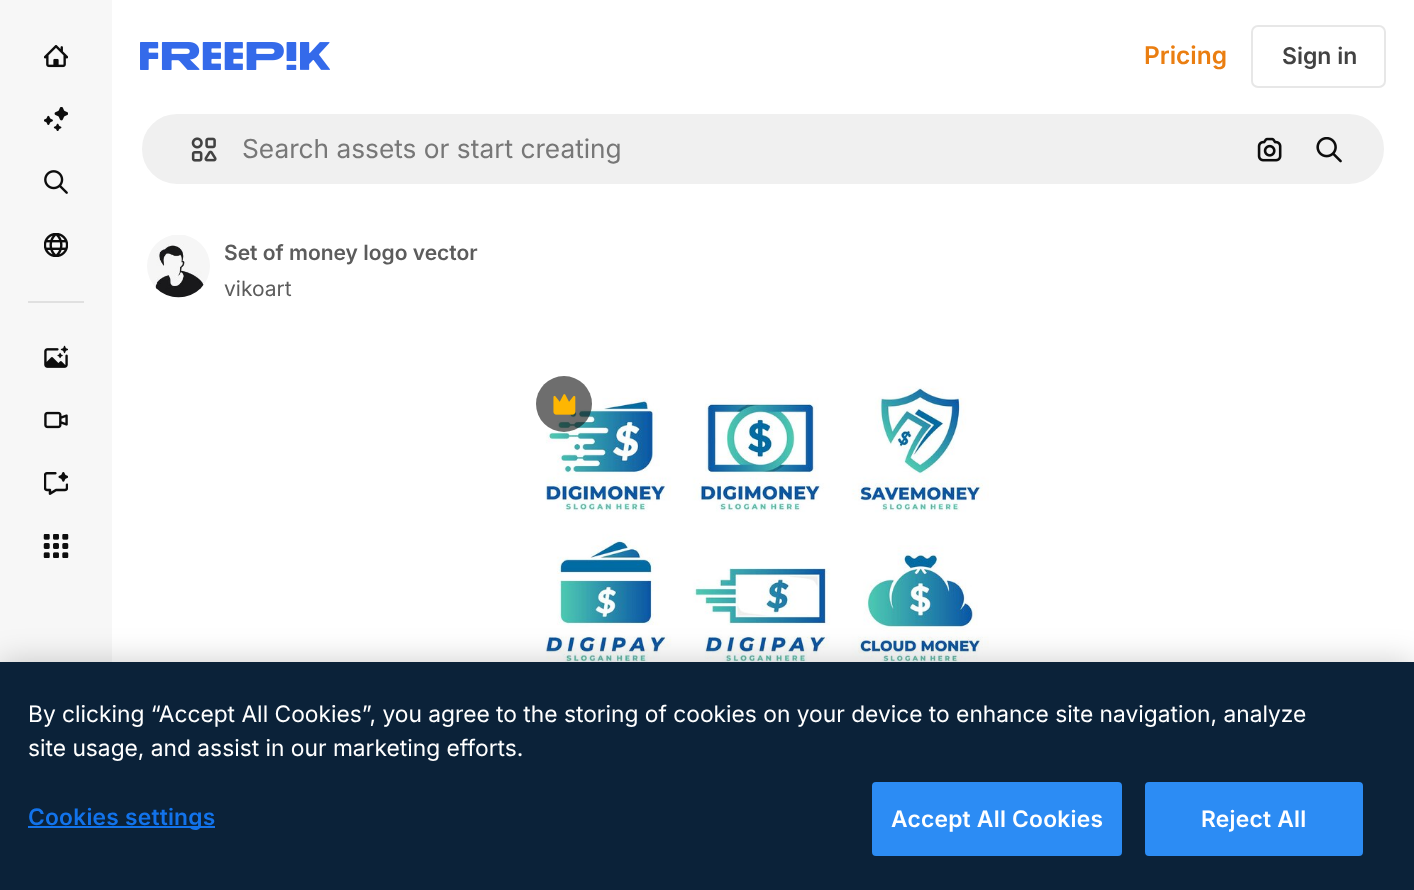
async function draw(canvas) {
	canvas.width = 1414;
	canvas.height = 890;
	const c = canvas.getContext('2d');
	c.miterLimit = 4;
	c.fontKerning = 'normal';
	async function loadImage(src) {
		const img = new Image();
		img.src = src;
		await img.decode();
		return img;
	}

	c.fillStyle = '#fff';
	c.fillRect(0, 0, 1414, 890);
	c.fillStyle = '#f7f7f7';
	c.fillRect(0, 0, 112, 662);
	c.drawImage(await loadImage('img1.png'), 44, 45, 24, 23);
	c.drawImage(await loadImage('img2.png'), 44, 107, 24, 24);
	c.drawImage(await loadImage('img3.png'), 44, 170, 24, 24);
	c.drawImage(await loadImage('img4.png'), 44, 233, 24, 24);
	c.fillStyle = '#e0e0e0';
	c.fillRect(28, 301, 56, 2);
	c.drawImage(await loadImage('img5.png'), 44, 345, 24, 23);
	c.drawImage(await loadImage('img6.png'), 44, 411, 24, 18);
	c.drawImage(await loadImage('img7.png'), 44, 472, 24, 23);
	c.drawImage(await loadImage('img8.png'), 43, 534, 26, 24);
	c.drawImage(await loadImage('img9.png'), 140, 42, 190, 28);
	c.font = '600 24.5px Inter';
	c.fillStyle = '#ea7e11';
	c.fillText('Pricing', 1144, 64);
	c.beginPath();
	c.roundRect(1252, 26, 133, 61, 6);
	c.strokeStyle = '#e7e7e7';
	c.lineWidth = 2;
	c.stroke();
	c.font = '600 23px Inter';
	c.fillStyle = '#424242';
	c.fillText('Sign in', 1282, 64);
	c.fillStyle = '#f0f0f0';
	c.beginPath();
	c.roundRect(141, 113, 1244, 72, 36);
	c.fill();
	c.strokeStyle = '#fff';
	c.stroke();
	c.drawImage(await loadImage('img10.png'), 191, 137, 26, 25);
	c.font = '26.25px Inter';
	c.fillStyle = '#777';
	c.fillText('Search assets or start creating', 242, 158);
	c.drawImage(await loadImage('img11.png'), 1257, 137, 25, 25);
	c.drawImage(await loadImage('img12.png'), 1316, 137, 26, 26);
	c.drawImage(await loadImage('img13.png'), 147, 235, 63, 63);
	c.font = '600 21px Inter';
	c.fillStyle = '#5c5c5c';
	c.fillText('Set of money logo vector', 224, 260);
	c.font = '21px Inter';
	c.fillText('vikoart', 224, 296);
	c.drawImage(await loadImage('img15.png'), 545, 386, 444, 276);
	c.fillStyle = '#0d0d0d99';
	c.beginPath();
	c.arc(564, 404, 28, 0, 2 * Math.PI);
	c.fill();
	c.drawImage(await loadImage('img14.png'), 553, 394, 23, 21);
	c.fillStyle = '#00000033';
	c.filter = 'blur(16px)';
	c.beginPath();
	c.rect(0, 662, 1414, 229);
	c.fill();
	c.filter = 'none';
	c.fillStyle = '#0b2239';
	c.fillRect(0, 662, 1414, 228);
	c.font = '22.75px Inter';
	c.fillStyle = '#fff';
	c.fillText('By clicking “Accept All Cookies”, you agree to the storing of cookies on your device to enhance site navigation, analyze', 28, 722);
	c.fillText('site usage, and assist in our marketing efforts.', 28, 756);
	c.fillStyle = '#1273eb';
	c.fillRect(28, 826, 187, 2);
	c.letterSpacing = '0.25px';
	c.font = '600 22.75px Inter';
	c.fillText('Cookies settings', 28, 825);
	c.fillStyle = '#2c8cf4';
	c.beginPath();
	c.roundRect(873, 783, 248, 72, 3);
	c.fill();
	c.strokeStyle = '#2c8cf4';
	c.stroke();
	c.fillStyle = '#fff';
	c.fillText('Accept All Cookies', 891, 827);
	c.fillStyle = '#2c8cf4';
	c.beginPath();
	c.roundRect(1146, 783, 216, 72, 3);
	c.fill();
	c.stroke();
	c.fillStyle = '#fff';
	c.fillText('Reject All', 1201, 827);
}

draw(document.querySelector('canvas'));
